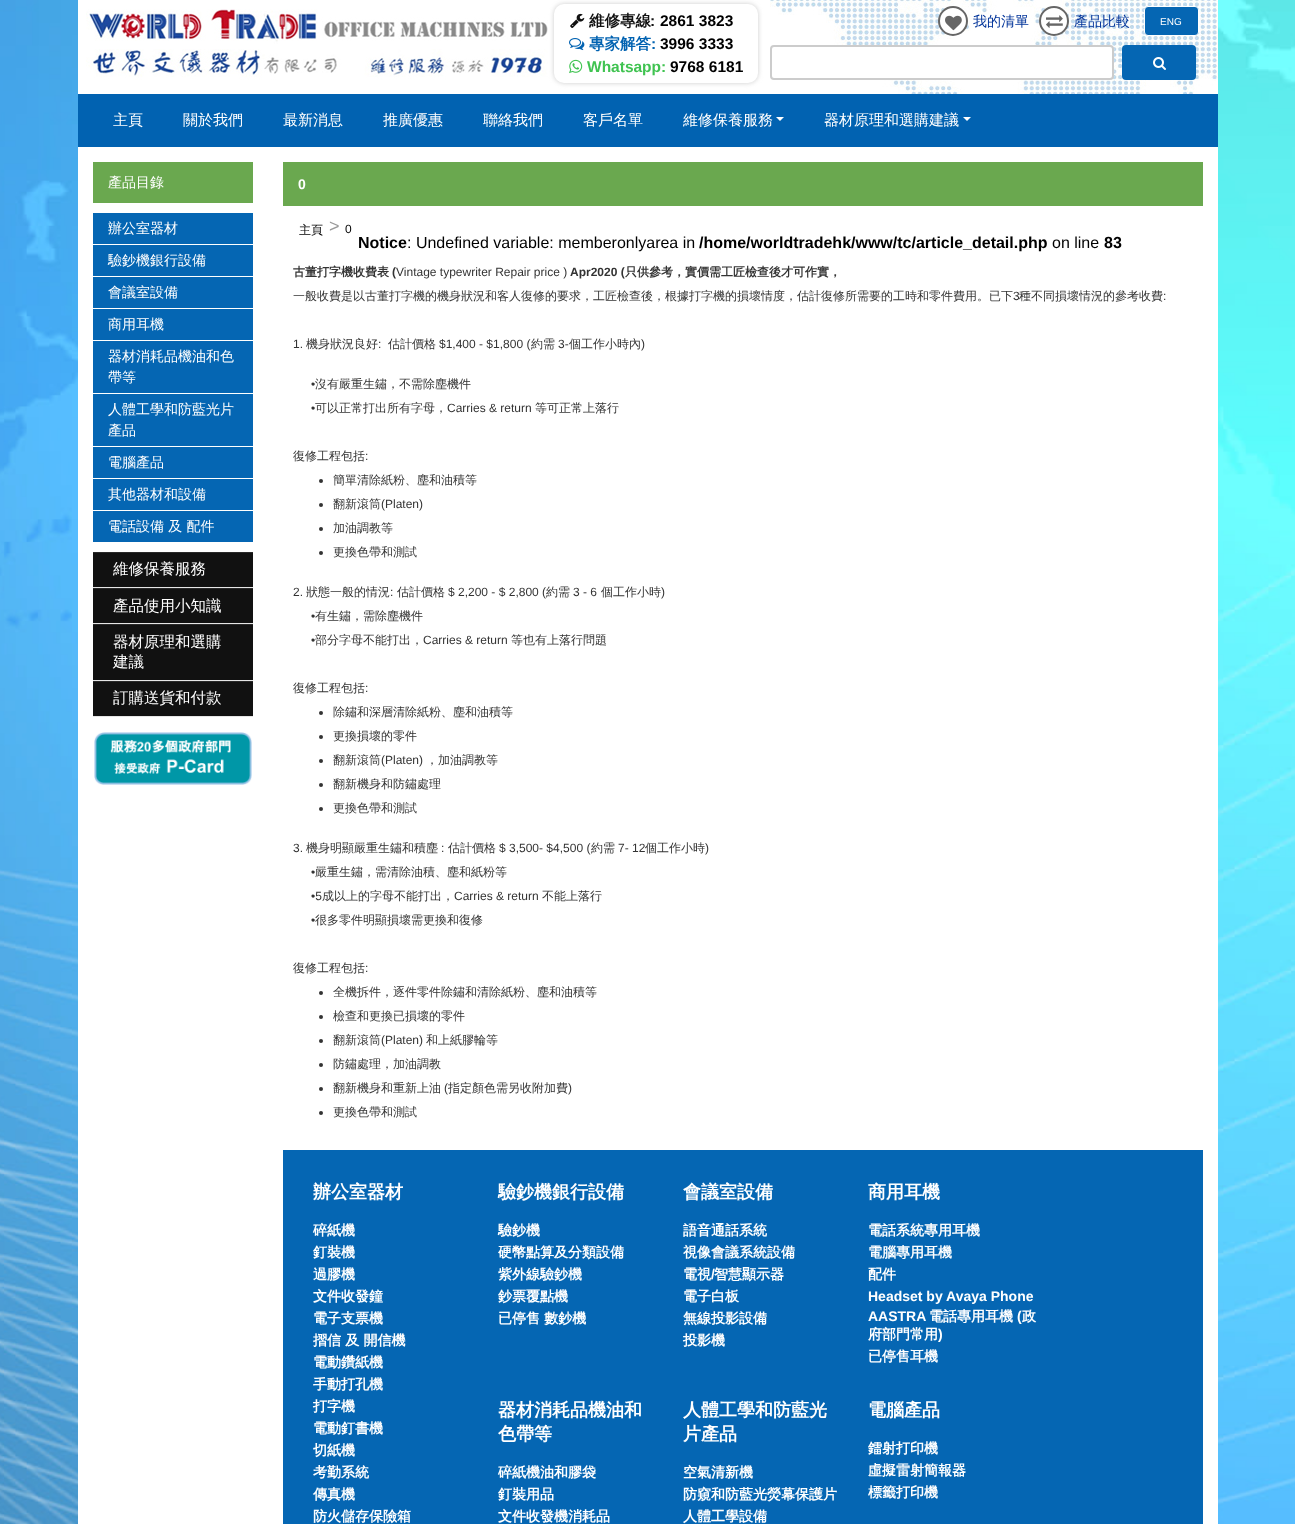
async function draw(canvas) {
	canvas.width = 1295;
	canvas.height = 1524;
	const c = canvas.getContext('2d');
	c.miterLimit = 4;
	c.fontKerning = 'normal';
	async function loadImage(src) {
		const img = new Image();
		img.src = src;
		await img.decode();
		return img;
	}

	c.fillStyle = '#fff';
	c.fillRect(0, 0, 1295, 1524);
	c.drawImage(await loadImage('img1.png'), 0, 0, 1295, 1524);
	c.fillRect(78, 0, 1140, 1524);
	c.drawImage(await loadImage('img2.png'), 770, 0, 448, 94);
	c.drawImage(await loadImage('img3.png'), 86, 9, 462, 71);
	c.fillStyle = '#ccc';
	c.filter = 'blur(2.5px)';
	c.beginPath();
	c.roundRect(554, 4, 204, 79, 10);
	c.fill();
	c.filter = 'none';
	c.fillStyle = '#fff';
	c.beginPath();
	c.roundRect(554, 4, 204, 79, 10);
	c.fill();
	c.drawImage(await loadImage('img4.png'), 570, 13, 15, 15);
	c.font = 'bold 15.5px WenQuanYi Zen Hei';
	c.fillStyle = '#111';
	c.fillText('維修專線', 589, 26);
	c.font = 'bold 15.5px Liberation Sans';
	c.fillText(':', 650, 26);
	c.fillStyle = '#000';
	c.fillText('2861 3823', 660, 26);
	c.drawImage(await loadImage('img5.png'), 569, 38, 16, 13);
	c.font = 'bold 15.5px WenQuanYi Zen Hei';
	c.fillStyle = '#0162b1';
	c.fillText('專家解答', 589, 49);
	c.font = 'bold 15.5px Liberation Sans';
	c.fillText(':', 651, 49);
	c.fillStyle = '#000';
	c.fillText('3996 3333', 660, 49);
	c.drawImage(await loadImage('img6.png'), 569, 59, 14, 15);
	c.fillStyle = '#40c351';
	c.fillText('Whatsapp:', 587, 72);
	c.fillStyle = '#000';
	c.fillText('9768 6181', 670, 72);
	c.fillStyle = '#fff';
	c.beginPath();
	c.arc(953, 21, 14, 0, 2 * Math.PI);
	c.fill();
	c.strokeStyle = '#666';
	c.lineWidth = 2;
	c.stroke();
	c.drawImage(await loadImage('img7.png'), 945, 15, 17, 16);
	c.font = '500 14px WenQuanYi Zen Hei';
	c.fillStyle = '#039';
	c.fillText('我的清單', 973, 26);
	c.fillStyle = '#fff';
	c.beginPath();
	c.arc(1054, 21, 14, 0, 2 * Math.PI);
	c.fill();
	c.stroke();
	c.drawImage(await loadImage('img8.png'), 1046, 15, 17, 13);
	c.fillStyle = '#039';
	c.fillText('產品比較', 1074, 26);
	c.fillStyle = '#0566b3';
	c.beginPath();
	c.roundRect(1144.5, 6.5, 54, 29, 3.5);
	c.fill();
	c.strokeStyle = '#fff';
	c.lineWidth = 1;
	c.stroke();
	c.font = '10px Liberation Sans';
	c.fillStyle = '#fff';
	c.fillText('ENG', 1160, 25);
	c.beginPath();
	c.roundRect(771, 46, 342, 33, 3);
	c.fill();
	c.strokeStyle = '#ccc';
	c.lineWidth = 2;
	c.stroke();
	c.fillStyle = '#0566b3';
	c.beginPath();
	c.roundRect(1122, 45, 74, 35, 4);
	c.fill();
	c.drawImage(await loadImage('img9.png'), 1153, 57, 13, 13);
	c.fillStyle = '#0162b1';
	c.fillRect(78, 94, 1140, 53);
	c.font = '500 15px WenQuanYi Zen Hei';
	c.fillStyle = '#fff';
	for (const [text, x, y] of [
		['主頁', 113, 125],
		['關於我們', 183, 125],
		['最新消息', 283, 125],
		['推廣優惠', 383, 125],
		['聯絡我們', 483, 125],
		['客戶名單', 583, 125],
		['維修保養服務', 683, 125],
	]) {
		c.fillText(text, x, y);
	}
	c.beginPath();
	c.moveTo(776, 117);
	c.lineTo(784, 117);
	c.lineTo(780, 121);
	c.closePath();
	c.fill();
	c.fillText('器材原理和選購建議', 824, 125);
	c.beginPath();
	c.moveTo(963, 117);
	c.lineTo(971, 117);
	c.lineTo(967, 121);
	c.closePath();
	c.fill();
	c.fillStyle = '#6aa84f';
	c.fillRect(93, 162, 160, 41);
	c.font = '500 14px WenQuanYi Zen Hei';
	c.fillStyle = '#fff';
	c.fillText('產品目錄', 108, 187);
	c.fillStyle = '#0566b3';
	c.fillRect(93, 213, 160, 31);
	c.fillStyle = '#fff';
	c.fillText('辦公室器材', 108, 233);
	c.fillStyle = '#0566b3';
	c.fillRect(93, 245, 160, 31);
	c.fillStyle = '#fff';
	c.fillText('驗鈔機銀行設備', 108, 265);
	c.fillStyle = '#0566b3';
	c.fillRect(93, 277, 160, 31);
	c.fillStyle = '#fff';
	c.fillText('會議室設備', 108, 297);
	c.fillStyle = '#0566b3';
	c.fillRect(93, 309, 160, 31);
	c.fillStyle = '#fff';
	c.fillText('商用耳機', 108, 329);
	c.fillStyle = '#0566b3';
	c.fillRect(93, 341, 160, 52);
	c.fillStyle = '#fff';
	c.fillText('器材消耗品機油和色', 108, 361);
	c.fillText('帶等', 108, 382);
	c.fillStyle = '#0566b3';
	c.fillRect(93, 394, 160, 52);
	c.fillStyle = '#fff';
	c.fillText('人體工學和防藍光片', 108, 414);
	c.fillText('產品', 108, 435);
	c.fillStyle = '#0566b3';
	c.fillRect(93, 447, 160, 31);
	c.fillStyle = '#fff';
	c.fillText('電腦產品', 108, 467);
	c.fillStyle = '#0566b3';
	c.fillRect(93, 479, 160, 31);
	c.fillStyle = '#fff';
	c.fillText('其他器材和設備', 108, 499);
	c.fillStyle = '#0566b3';
	c.fillRect(93, 511, 160, 31);
	c.fillStyle = '#fff';
	c.fillText('電話設備 及 配件', 108, 531);
	for (const [x, y, w, h, color] of [
		[93, 587, 160, 1, '#e6e6e6'],
		[93, 553, 160, 34, '#111'],
		[93, 552, 160, 1, '#292929'],
	]) {
		c.fillStyle = color;
		c.fillRect(x, y, w, h);
	}
	c.font = '500 15.5px WenQuanYi Zen Hei';
	c.fillStyle = '#fff';
	c.fillText('維修保養服務', 113, 574);
	for (const [x, y, w, h, color] of [
		[93, 623, 160, 1, '#e6e6e6'],
		[93, 589, 160, 34, '#111'],
		[93, 588, 160, 1, '#292929'],
	]) {
		c.fillStyle = color;
		c.fillRect(x, y, w, h);
	}
	c.fillStyle = '#fff';
	c.fillText('產品使用小知識', 113, 611);
	for (const [x, y, w, h, color] of [
		[93, 680, 160, 1, '#e6e6e6'],
		[93, 625, 160, 55, '#111'],
		[93, 624, 160, 1, '#292929'],
	]) {
		c.fillStyle = color;
		c.fillRect(x, y, w, h);
	}
	c.fillStyle = '#fff';
	c.fillText('器材原理和選購', 113, 647);
	c.fillText('建議', 113, 667);
	for (const [x, y, w, h, color] of [
		[93, 716, 160, 1, '#e6e6e6'],
		[93, 682, 160, 34, '#111'],
		[93, 681, 160, 1, '#292929'],
	]) {
		c.fillStyle = color;
		c.fillRect(x, y, w, h);
	}
	c.fillStyle = '#fff';
	c.fillText('訂購送貨和付款', 113, 703);
	c.drawImage(await loadImage('img10.png'), 94, 732, 158, 53);
	c.fillStyle = '#6aa84f';
	c.fillRect(283, 162, 920, 44);
	c.font = 'bold 14px Liberation Sans';
	c.fillStyle = '#fff';
	c.fillText('0', 298, 189);
	c.font = '500 12px WenQuanYi Zen Hei';
	c.fillStyle = '#000';
	c.fillText('主頁', 299, 234);
	c.font = '18px Liberation Sans';
	c.fillStyle = '#999';
	c.fillText('>', 329, 232);
	c.font = '12px Liberation Sans';
	c.fillStyle = '#000';
	c.fillText('0', 345, 233);
	c.font = 'bold 16px Liberation Sans';
	c.fillText('Notice', 358, 248);
	c.font = '16px Liberation Sans';
	c.fillText(': Undefined variable: memberonlyarea in', 407, 248);
	c.font = 'bold 16px Liberation Sans';
	c.fillText('/home/worldtradehk/www/tc/article_detail.php', 699, 248);
	c.font = '16px Liberation Sans';
	c.fillText('on line', 1052, 248);
	c.font = 'bold 16px Liberation Sans';
	c.fillText('83', 1104, 248);
	c.font = 'bold 12px WenQuanYi Zen Hei';
	c.fillStyle = '#333';
	c.fillText('古董打字機收費表', 293, 276);
	c.font = 'bold 12px Liberation Sans';
	c.fillText('(', 392, 276);
	c.font = '12px Liberation Sans';
	c.fillText('Vintage typewriter Repair price )', 396, 276);
	c.font = 'bold 12px Liberation Sans';
	c.fillText('Apr2020 (', 570, 276);
	c.font = 'bold 12px WenQuanYi Zen Hei';
	c.fillText('只供參考，實價需工匠檢查後才可作實，', 625, 276);
	c.font = '500 12px WenQuanYi Zen Hei';
	c.fillText('一般收費是以古董打字機的機身狀況和客人復修的要求，工匠檢查後，根據打字機的損壞情度，估計復修所需要的工時和零件費用。已下', 293, 300);
	c.font = '12px Liberation Sans';
	c.fillText('3', 1013, 300);
	c.font = '500 12px WenQuanYi Zen Hei';
	c.fillText('種不同損壞情況的參考收費', 1019, 300);
	c.font = '12px Liberation Sans';
	c.fillText(':', 1163, 300);
	c.fillText('1.', 293, 348);
	c.font = '500 12px WenQuanYi Zen Hei';
	c.fillText('機身狀況良好', 306, 348);
	c.font = '12px Liberation Sans';
	c.fillText(':', 378, 348);
	c.font = '500 12px WenQuanYi Zen Hei';
	c.fillText('估計價格', 388, 348);
	c.font = '12px Liberation Sans';
	c.fillText('$1,400 - $1,800 (', 439, 348);
	c.font = '500 12px WenQuanYi Zen Hei';
	c.fillText('約需', 531, 348);
	c.font = '12px Liberation Sans';
	c.fillText('3-', 558, 348);
	c.font = '500 12px WenQuanYi Zen Hei';
	c.fillText('個工作小時內', 569, 348);
	c.font = '12px Liberation Sans';
	c.fillText(')', 641, 348);
	c.fillText('•', 311, 388);
	c.font = '500 12px WenQuanYi Zen Hei';
	c.fillText('沒有嚴重生鏽，不需除塵機件', 315, 388);
	c.font = '12px Liberation Sans';
	c.fillText('•', 311, 412);
	c.font = '500 12px WenQuanYi Zen Hei';
	c.fillText('可以正常打出所有字母，', 315, 412);
	c.font = '12px Liberation Sans';
	c.fillText('Carries & return', 447, 412);
	c.font = '500 12px WenQuanYi Zen Hei';
	c.fillText('等可正常上落行', 535, 412);
	c.fillText('復修工程包括', 293, 460);
	c.font = '12px Liberation Sans';
	c.fillText(':', 365, 460);
	c.beginPath();
	c.arc(321, 481, 2, 0, 2 * Math.PI);
	c.fill();
	c.font = '500 12px WenQuanYi Zen Hei';
	c.fillText('簡單清除紙粉、塵和油積等', 333, 484);
	c.beginPath();
	c.arc(321, 505, 2, 0, 2 * Math.PI);
	c.fill();
	c.fillText('翻新滾筒', 333, 508);
	c.font = '12px Liberation Sans';
	c.fillText('(Platen)', 381, 508);
	c.beginPath();
	c.arc(321, 529, 2, 0, 2 * Math.PI);
	c.fill();
	c.font = '500 12px WenQuanYi Zen Hei';
	c.fillText('加油調教等', 333, 532);
	c.beginPath();
	c.arc(321, 553, 2, 0, 2 * Math.PI);
	c.fill();
	c.fillText('更換色帶和測試', 333, 556);
	c.font = '12px Liberation Sans';
	c.fillText('2.', 293, 596);
	c.font = '500 12px WenQuanYi Zen Hei';
	c.fillText('狀態一般的情況', 306, 596);
	c.font = '12px Liberation Sans';
	c.fillText(':', 390, 596);
	c.font = '500 12px WenQuanYi Zen Hei';
	c.fillText('估計價格', 397, 596);
	c.font = '12px Liberation Sans';
	c.fillText('$ 2,200 - $ 2,800 (', 448, 596);
	c.font = '500 12px WenQuanYi Zen Hei';
	c.fillText('約需', 546, 596);
	c.font = '12px Liberation Sans';
	c.fillText('3 - 6', 573, 596);
	c.font = '500 12px WenQuanYi Zen Hei';
	c.fillText('個工作小時', 601, 596);
	c.font = '12px Liberation Sans';
	c.fillText(')', 661, 596);
	c.fillText('•', 311, 620);
	c.font = '500 12px WenQuanYi Zen Hei';
	c.fillText('有生鏽，需除塵機件', 315, 620);
	c.font = '12px Liberation Sans';
	c.fillText('•', 311, 644);
	c.font = '500 12px WenQuanYi Zen Hei';
	c.fillText('部分字母不能打出，', 315, 644);
	c.font = '12px Liberation Sans';
	c.fillText('Carries & return', 423, 644);
	c.font = '500 12px WenQuanYi Zen Hei';
	c.fillText('等也有上落行問題', 511, 644);
	c.fillText('復修工程包括', 293, 692);
	c.font = '12px Liberation Sans';
	c.fillText(':', 365, 692);
	c.beginPath();
	c.arc(321, 713, 2, 0, 2 * Math.PI);
	c.fill();
	c.font = '500 12px WenQuanYi Zen Hei';
	c.fillText('除鏽和深層清除紙粉、塵和油積等', 333, 716);
	c.beginPath();
	c.arc(321, 737, 2, 0, 2 * Math.PI);
	c.fill();
	c.fillText('更換損壞的零件', 333, 740);
	c.beginPath();
	c.arc(321, 761, 2, 0, 2 * Math.PI);
	c.fill();
	c.fillText('翻新滾筒', 333, 764);
	c.font = '12px Liberation Sans';
	c.fillText('(Platen)', 381, 764);
	c.font = '500 12px WenQuanYi Zen Hei';
	c.fillText('，加油調教等', 426, 764);
	c.beginPath();
	c.arc(321, 785, 2, 0, 2 * Math.PI);
	c.fill();
	c.fillText('翻新機身和防鏽處理', 333, 788);
	c.beginPath();
	c.arc(321, 809, 2, 0, 2 * Math.PI);
	c.fill();
	c.fillText('更換色帶和測試', 333, 812);
	c.font = '12px Liberation Sans';
	c.fillText('3.', 293, 852);
	c.font = '500 12px WenQuanYi Zen Hei';
	c.fillText('機身明顯嚴重生鏽和積塵', 306, 852);
	c.font = '12px Liberation Sans';
	c.fillText(':', 441, 852);
	c.font = '500 12px WenQuanYi Zen Hei';
	c.fillText('估計價格', 448, 852);
	c.font = '12px Liberation Sans';
	c.fillText('$ 3,500- $4,500 (', 499, 852);
	c.font = '500 12px WenQuanYi Zen Hei';
	c.fillText('約需', 591, 852);
	c.font = '12px Liberation Sans';
	c.fillText('7- 12', 618, 852);
	c.font = '500 12px WenQuanYi Zen Hei';
	c.fillText('個工作小時', 645, 852);
	c.font = '12px Liberation Sans';
	c.fillText(')', 705, 852);
	c.fillText('•', 311, 876);
	c.font = '500 12px WenQuanYi Zen Hei';
	c.fillText('嚴重生鏽，需清除油積、塵和紙粉等', 315, 876);
	c.font = '12px Liberation Sans';
	c.fillText('•5', 311, 900);
	c.font = '500 12px WenQuanYi Zen Hei';
	c.fillText('成以上的字母不能打出，', 322, 900);
	c.font = '12px Liberation Sans';
	c.fillText('Carries & return', 454, 900);
	c.font = '500 12px WenQuanYi Zen Hei';
	c.fillText('不能上落行', 542, 900);
	c.font = '12px Liberation Sans';
	c.fillText('•', 311, 924);
	c.font = '500 12px WenQuanYi Zen Hei';
	c.fillText('很多零件明顯損壞需更換和復修', 315, 924);
	c.fillText('復修工程包括', 293, 972);
	c.font = '12px Liberation Sans';
	c.fillText(':', 365, 972);
	c.beginPath();
	c.arc(321, 993, 2, 0, 2 * Math.PI);
	c.fill();
	c.font = '500 12px WenQuanYi Zen Hei';
	c.fillText('全機拆件，逐件零件除鏽和清除紙粉、塵和油積等', 333, 996);
	c.beginPath();
	c.arc(321, 1017, 2, 0, 2 * Math.PI);
	c.fill();
	c.fillText('檢查和更換已損壞的零件', 333, 1020);
	c.beginPath();
	c.arc(321, 1041, 2, 0, 2 * Math.PI);
	c.fill();
	c.fillText('翻新滾筒', 333, 1044);
	c.font = '12px Liberation Sans';
	c.fillText('(Platen)', 381, 1044);
	c.font = '500 12px WenQuanYi Zen Hei';
	c.fillText('和上紙膠輪等', 426, 1044);
	c.beginPath();
	c.arc(321, 1065, 2, 0, 2 * Math.PI);
	c.fill();
	c.fillText('防鏽處理，加油調教', 333, 1068);
	c.beginPath();
	c.arc(321, 1089, 2, 0, 2 * Math.PI);
	c.fill();
	c.fillText('翻新機身和重新上油', 333, 1092);
	c.font = '12px Liberation Sans';
	c.fillText('(', 444, 1092);
	c.font = '500 12px WenQuanYi Zen Hei';
	c.fillText('指定顏色需另收附加費', 448, 1092);
	c.font = '12px Liberation Sans';
	c.fillText(')', 568, 1092);
	c.beginPath();
	c.arc(321, 1113, 2, 0, 2 * Math.PI);
	c.fill();
	c.font = '500 12px WenQuanYi Zen Hei';
	c.fillText('更換色帶和測試', 333, 1116);
	c.fillStyle = '#0566b3';
	c.fillRect(283, 1150, 920, 374);
	c.font = 'bold 18px WenQuanYi Zen Hei';
	c.fillStyle = '#fff';
	c.fillText('辦公室器材', 313, 1198);
	c.font = 'bold 14px WenQuanYi Zen Hei';
	for (const [text, x, y] of [
		['碎紙機', 313, 1235],
		['釘裝機', 313, 1257],
		['過膠機', 313, 1279],
		['文件收發鐘', 313, 1301],
		['電子支票機', 313, 1323],
		['摺信 及 開信機', 313, 1345],
		['電動鑽紙機', 313, 1367],
		['手動打孔機', 313, 1389],
		['打字機', 313, 1411],
		['電動釘書機', 313, 1433],
		['切紙機', 313, 1455],
		['考勤系統', 313, 1477],
		['傳真機', 313, 1499],
		['防火儲存保險箱', 313, 1521],
	]) {
		c.fillText(text, x, y);
	}
	c.font = 'bold 18px WenQuanYi Zen Hei';
	c.fillText('驗鈔機銀行設備', 498, 1198);
	c.font = 'bold 14px WenQuanYi Zen Hei';
	for (const [text, x, y] of [
		['驗鈔機', 498, 1235],
		['硬幣點算及分類設備', 498, 1257],
		['紫外線驗鈔機', 498, 1279],
		['鈔票覆點機', 498, 1301],
		['已停售 數鈔機', 498, 1323],
	]) {
		c.fillText(text, x, y);
	}
	c.font = 'bold 18px WenQuanYi Zen Hei';
	c.fillText('會議室設備', 683, 1198);
	c.font = 'bold 14px WenQuanYi Zen Hei';
	for (const [text, x, y] of [
		['語音通話系統', 683, 1235],
		['視像會議系統設備', 683, 1257],
		['電視', 683, 1279],
	]) {
		c.fillText(text, x, y);
	}
	c.font = 'bold 14px Liberation Sans';
	c.fillText('/', 711, 1279);
	c.font = 'bold 14px WenQuanYi Zen Hei';
	for (const [text, x, y] of [
		['智慧顯示器', 714, 1279],
		['電子白板', 683, 1301],
		['無線投影設備', 683, 1323],
		['投影機', 683, 1345],
	]) {
		c.fillText(text, x, y);
	}
	c.font = 'bold 18px WenQuanYi Zen Hei';
	c.fillText('商用耳機', 868, 1198);
	c.font = 'bold 14px WenQuanYi Zen Hei';
	for (const [text, x, y] of [
		['電話系統專用耳機', 868, 1235],
		['電腦專用耳機', 868, 1257],
		['配件', 868, 1279],
	]) {
		c.fillText(text, x, y);
	}
	c.font = 'bold 14px Liberation Sans';
	c.fillText('Headset by Avaya Phone', 868, 1301);
	c.fillText('AASTRA', 868, 1321);
	c.font = 'bold 14px WenQuanYi Zen Hei';
	c.fillText('電話專用耳機', 929, 1321);
	c.font = 'bold 14px Liberation Sans';
	c.fillText('(', 1017, 1321);
	c.font = 'bold 14px WenQuanYi Zen Hei';
	c.fillText('政', 1022, 1321);
	c.fillText('府部門常用', 868, 1339);
	c.font = 'bold 14px Liberation Sans';
	c.fillText(')', 938, 1339);
	c.font = 'bold 14px WenQuanYi Zen Hei';
	c.fillText('已停售耳機', 868, 1361);
	c.font = 'bold 18px WenQuanYi Zen Hei';
	c.fillText('器材消耗品機油和', 498, 1416);
	c.fillText('色帶等', 498, 1440);
	c.font = 'bold 14px WenQuanYi Zen Hei';
	for (const [text, x, y] of [
		['碎紙機油和膠袋', 498, 1477],
		['釘裝用品', 498, 1499],
		['文件收發機消耗品', 498, 1521],
	]) {
		c.fillText(text, x, y);
	}
	c.font = 'bold 18px WenQuanYi Zen Hei';
	c.fillText('人體工學和防藍光', 683, 1416);
	c.fillText('片產品', 683, 1440);
	c.font = 'bold 14px WenQuanYi Zen Hei';
	for (const [text, x, y] of [
		['空氣清新機', 683, 1477],
		['防窺和防藍光熒幕保護片', 683, 1499],
		['人體工學設備', 683, 1521],
	]) {
		c.fillText(text, x, y);
	}
	c.font = 'bold 18px WenQuanYi Zen Hei';
	c.fillText('電腦產品', 868, 1416);
	c.font = 'bold 14px WenQuanYi Zen Hei';
	for (const [text, x, y] of [
		['鐳射打印機', 868, 1453],
		['虛擬雷射簡報器', 868, 1475],
		['標籤打印機', 868, 1497],
	]) {
		c.fillText(text, x, y);
	}
}

draw(document.querySelector('canvas'));
